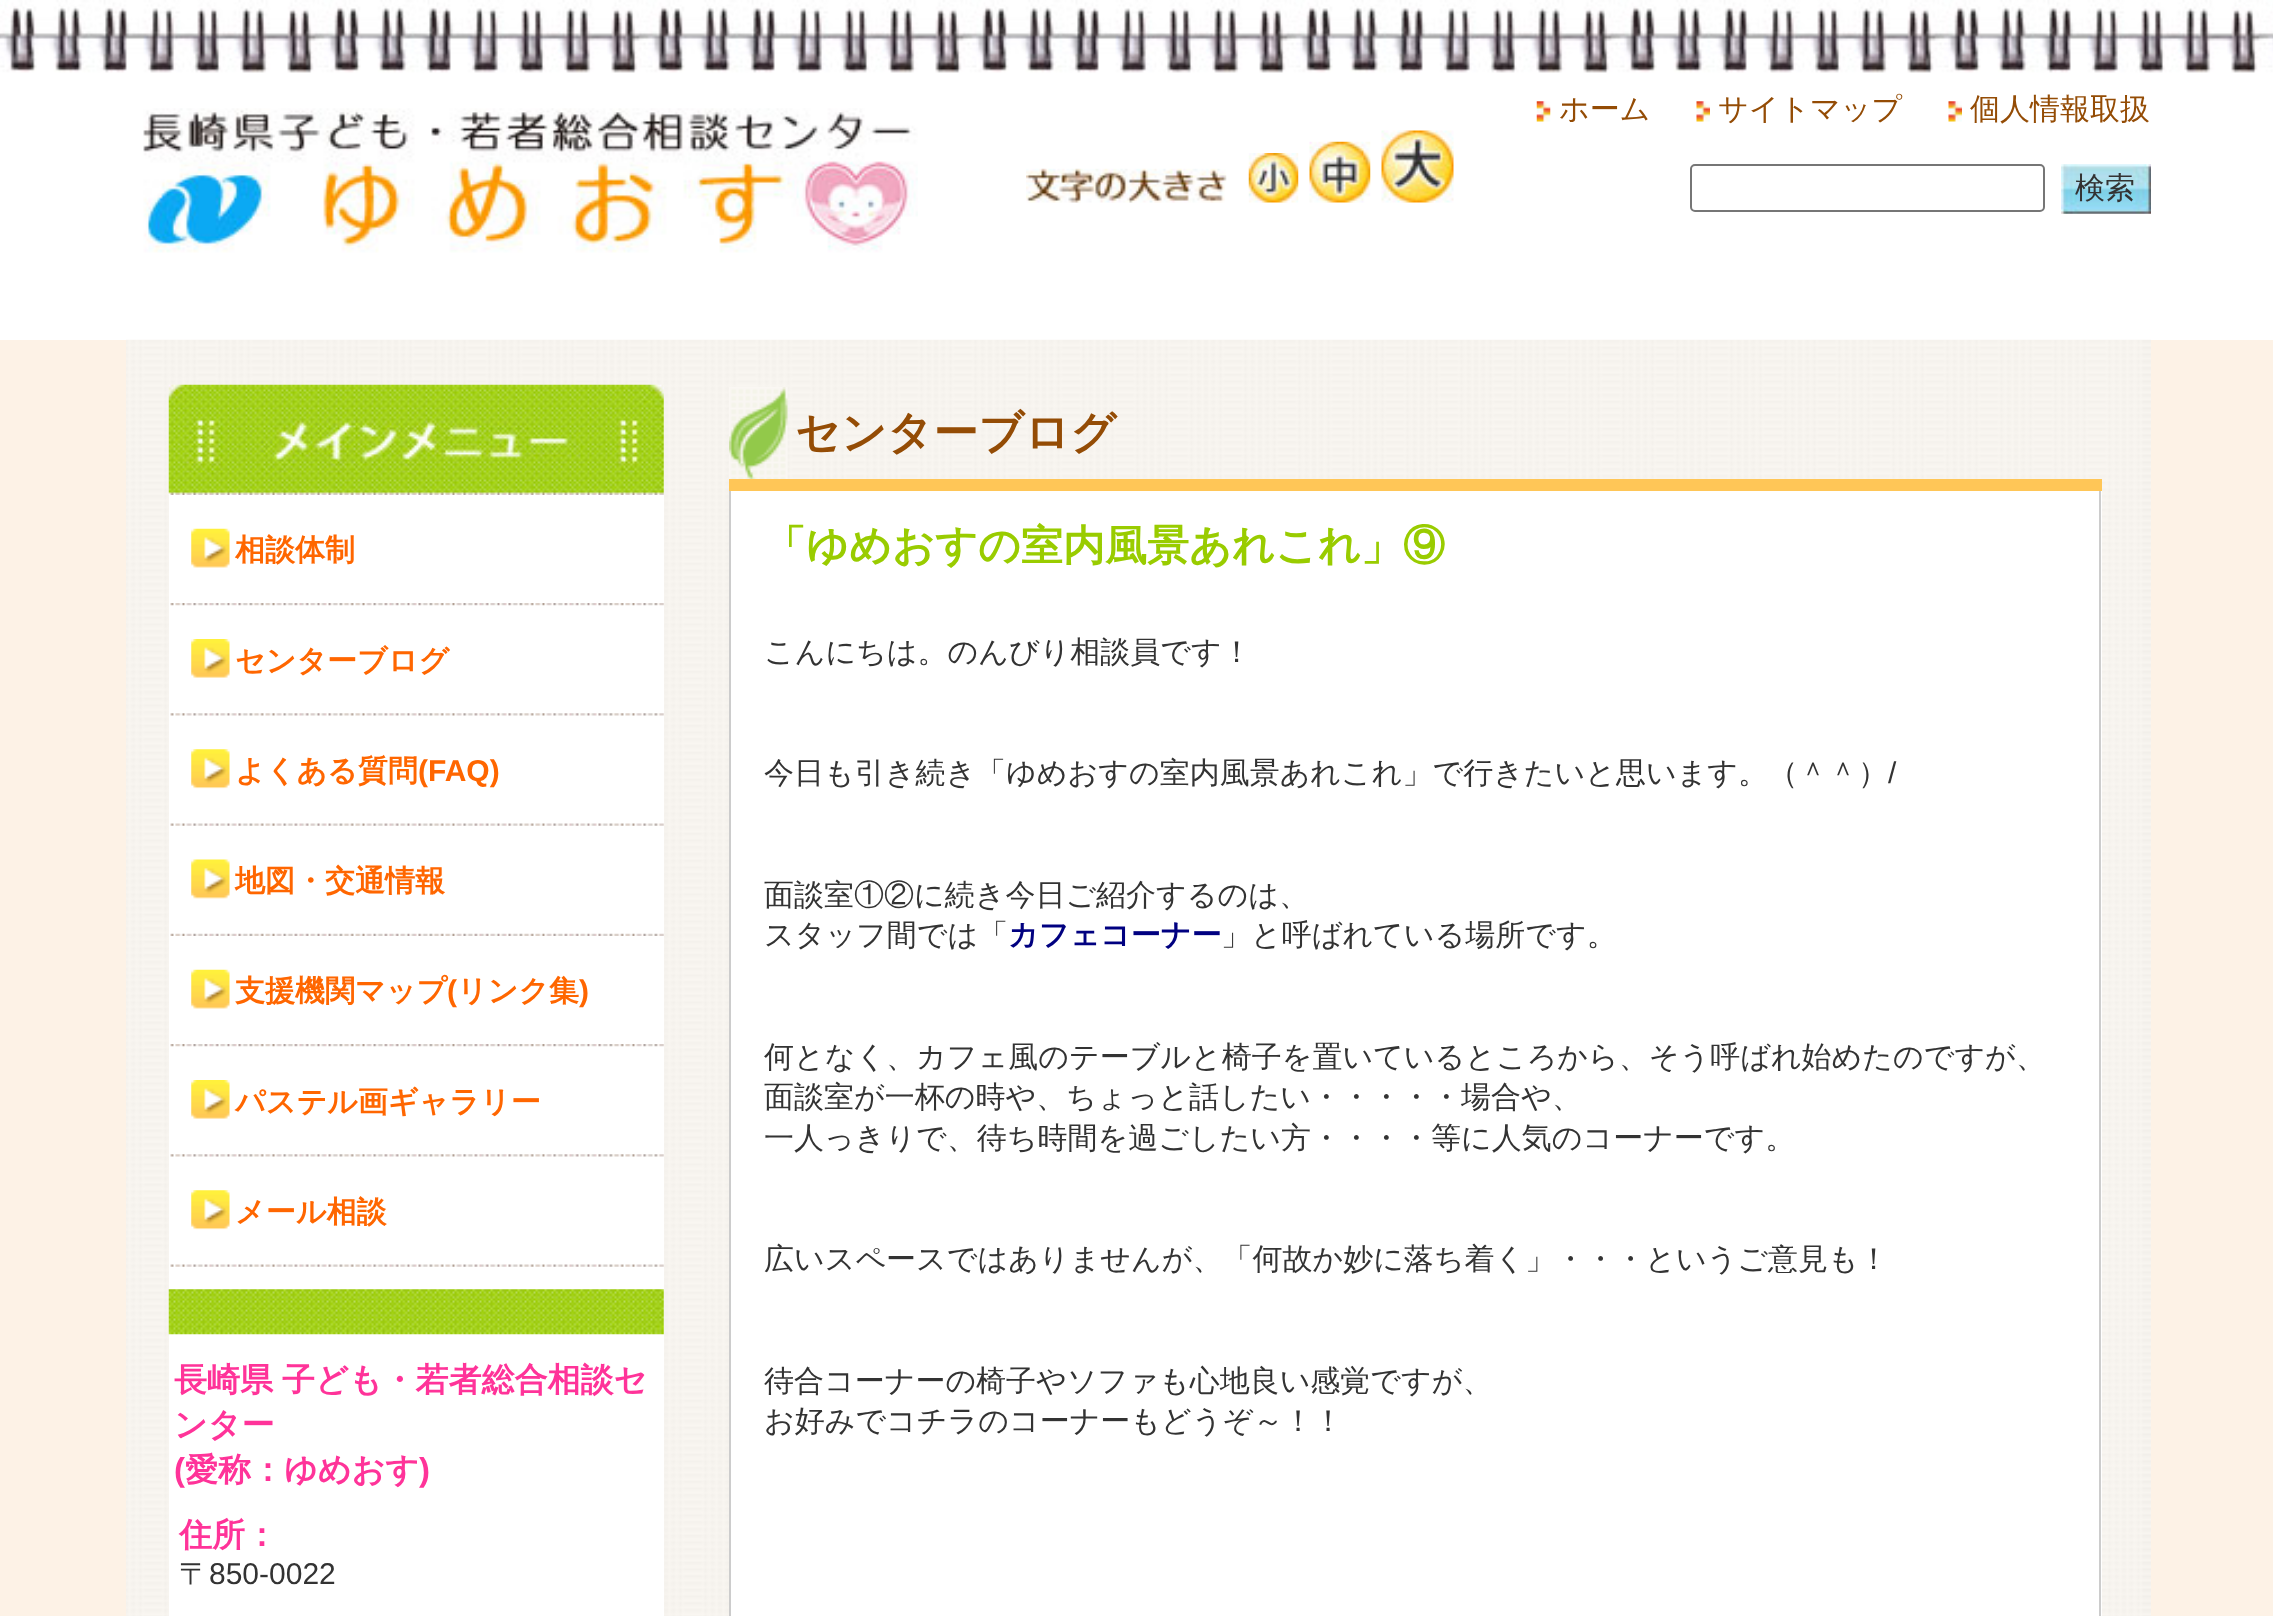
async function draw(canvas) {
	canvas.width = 2273;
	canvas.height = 1616;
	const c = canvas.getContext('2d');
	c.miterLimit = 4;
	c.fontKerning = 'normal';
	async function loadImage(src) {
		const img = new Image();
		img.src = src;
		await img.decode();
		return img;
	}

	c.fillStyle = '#fdf2e6';
	c.fillRect(0, 0, 2273, 1616);
	c.fillStyle = '#fff';
	c.fillRect(0, 73, 2273, 267);
	c.drawImage(await loadImage('img1.png'), 0, 0, 2273, 73);
	c.drawImage(await loadImage('img2.png'), 143, 108, 775, 145);
	c.drawImage(await loadImage('img3.png'), 1536, 101, 15, 21);
	c.font = '500 30px WenQuanYi Zen Hei';
	c.fillStyle = '#944c05';
	c.fillText('ホーム', 1559, 119);
	c.drawImage(await loadImage('img4.png'), 1696, 101, 14, 21);
	c.fillText('サイトマップ', 1718, 119);
	c.drawImage(await loadImage('img5.png'), 1948, 101, 14, 21);
	c.fillText('個人情報取扱', 1970, 119);
	c.drawImage(await loadImage('img6.png'), 1026, 168, 201, 35);
	c.drawImage(await loadImage('img7.png'), 1248, 153, 51, 50);
	c.drawImage(await loadImage('img8.png'), 1309, 141, 62, 62);
	c.drawImage(await loadImage('img9.png'), 1381, 130, 73, 73);
	c.beginPath();
	c.roundRect(1691, 165, 353, 46, 4);
	c.strokeStyle = '#767676';
	c.lineWidth = 2;
	c.stroke();
	c.drawImage(await loadImage('img10.png'), 2061, 164, 90, 50);
	c.fillStyle = '#333';
	c.fillText('検索', 2075, 198);
	c.drawImage(await loadImage('img11.png'), 126, 339, 2025, 1277);
	c.fillStyle = '#fff';
	c.fillRect(169, 385, 495, 1231);
	c.drawImage(await loadImage('img12.png'), 168, 384, 496, 111);
	c.drawImage(await loadImage('img13.png'), 170, 603, 494, 3);
	c.drawImage(await loadImage('img14.png'), 191, 528, 39, 40);
	c.font = 'bold 30px WenQuanYi Zen Hei';
	c.fillStyle = '#f60';
	c.fillText('相談体制', 235, 560);
	c.drawImage(await loadImage('img15.png'), 170, 713, 494, 3);
	c.drawImage(await loadImage('img16.png'), 191, 639, 39, 39);
	c.fillText('センターブログ', 235, 671);
	c.drawImage(await loadImage('img17.png'), 170, 823, 494, 3);
	c.drawImage(await loadImage('img18.png'), 191, 749, 39, 40);
	c.fillText('よくある質問', 235, 781);
	c.font = 'bold 30px Liberation Sans';
	c.fillText('(FAQ)', 418, 781);
	c.drawImage(await loadImage('img19.png'), 170, 933, 494, 3);
	c.drawImage(await loadImage('img20.png'), 191, 859, 39, 40);
	c.font = 'bold 30px WenQuanYi Zen Hei';
	c.fillText('地図・交通情報', 235, 891);
	c.drawImage(await loadImage('img13.png'), 170, 1044, 494, 3);
	c.drawImage(await loadImage('img14.png'), 191, 969, 39, 40);
	c.fillText('支援機関マップ', 235, 1001);
	c.font = 'bold 30px Liberation Sans';
	c.fillText('(', 447, 1001);
	c.font = 'bold 30px WenQuanYi Zen Hei';
	c.fillText('リンク集', 457, 1001);
	c.font = 'bold 30px Liberation Sans';
	c.fillText(')', 579, 1001);
	c.drawImage(await loadImage('img15.png'), 170, 1154, 494, 3);
	c.drawImage(await loadImage('img16.png'), 191, 1080, 39, 39);
	c.font = 'bold 30px WenQuanYi Zen Hei';
	c.fillText('パステル画ギャラリー', 235, 1112);
	c.drawImage(await loadImage('img17.png'), 170, 1264, 494, 3);
	c.drawImage(await loadImage('img18.png'), 191, 1190, 39, 40);
	c.fillText('メール相談', 235, 1222);
	c.drawImage(await loadImage('img21.png'), 168, 1289, 496, 46);
	c.wordSpacing = '-1px';
	c.font = 'bold 33px WenQuanYi Zen Hei';
	c.fillStyle = '#f39';
	c.fillText('長崎県 子ども・若者総合相談セ', 174, 1391);
	c.wordSpacing = '0px';
	c.fillText('ンター', 174, 1436);
	c.font = 'bold 33px Liberation Sans';
	c.fillText('(', 174, 1481);
	c.font = 'bold 33px WenQuanYi Zen Hei';
	c.fillText('愛称：ゆめおす', 185, 1481);
	c.font = 'bold 33px Liberation Sans';
	c.fillText(')', 419, 1481);
	c.font = 'bold 33px WenQuanYi Zen Hei';
	c.fillText('住所：', 179, 1546);
	c.font = '500 30px WenQuanYi Zen Hei';
	c.fillStyle = '#333';
	c.fillText('〒', 179, 1584);
	c.font = '30px Liberation Sans';
	c.fillText('850-0022', 209, 1584);
	c.drawImage(await loadImage('img22.png'), 729, 387, 59, 92);
	c.fillStyle = '#ffc657';
	c.fillRect(729, 479, 1373, 12);
	c.font = 'bold 45px WenQuanYi Zen Hei';
	c.fillStyle = '#944c05';
	c.fillText('センターブログ', 795, 448);
	for (const [x, y, w, h, color] of [
		[731, 491, 1371, 1125, '#fff'],
		[2099, 491, 2, 1125, '#ccc'],
		[729, 491, 2, 1125, '#ccc'],
	]) {
		c.fillStyle = color;
		c.fillRect(x, y, w, h);
	}
	c.font = 'bold 42px WenQuanYi Zen Hei';
	c.fillStyle = '#9c0';
	c.fillText('「ゆめおすの室内風景あれこれ」⑨', 764, 560);
	c.font = '500 30px WenQuanYi Zen Hei';
	c.fillStyle = '#333';
	c.fillText('こんにちは。のんびり相談員です！', 764, 662);
	c.fillText('今日も引き続き「ゆめおすの室内風景あれこれ」で行きたいと思います。（＾＾）', 764, 783);
	c.font = '30px Liberation Sans';
	c.fillText('/', 1888, 783);
	c.font = '500 30px WenQuanYi Zen Hei';
	c.fillText('面談室①②に続き今日ご紹介するのは、', 764, 905);
	c.fillText('スタッフ間では「', 764, 945);
	c.font = 'bold 30px WenQuanYi Zen Hei';
	c.fillStyle = '#000080';
	c.fillText('カフェコーナー', 1008, 945);
	c.font = '500 30px WenQuanYi Zen Hei';
	c.fillStyle = '#333';
	for (const [text, x, y] of [
		['」と呼ばれている場所です。', 1221, 945],
		['何となく、カフェ風のテーブルと椅子を置いているところから、そう呼ばれ始めたのですが、', 764, 1067],
		['面談室が一杯の時や、ちょっと話したい・・・・・場合や、', 764, 1107],
		['一人っきりで、待ち時間を過ごしたい方・・・・等に人気のコーナーです。', 764, 1148],
		['広いスペースではありませんが、「何故か妙に落ち着く」・・・というご意見も！', 764, 1269],
		['待合コーナーの椅子やソファも心地良い感覚ですが、', 764, 1391],
		['お好みでコチラのコーナーもどうぞ～！！', 764, 1431],
	]) {
		c.fillText(text, x, y);
	}
}

draw(document.querySelector('canvas'));
